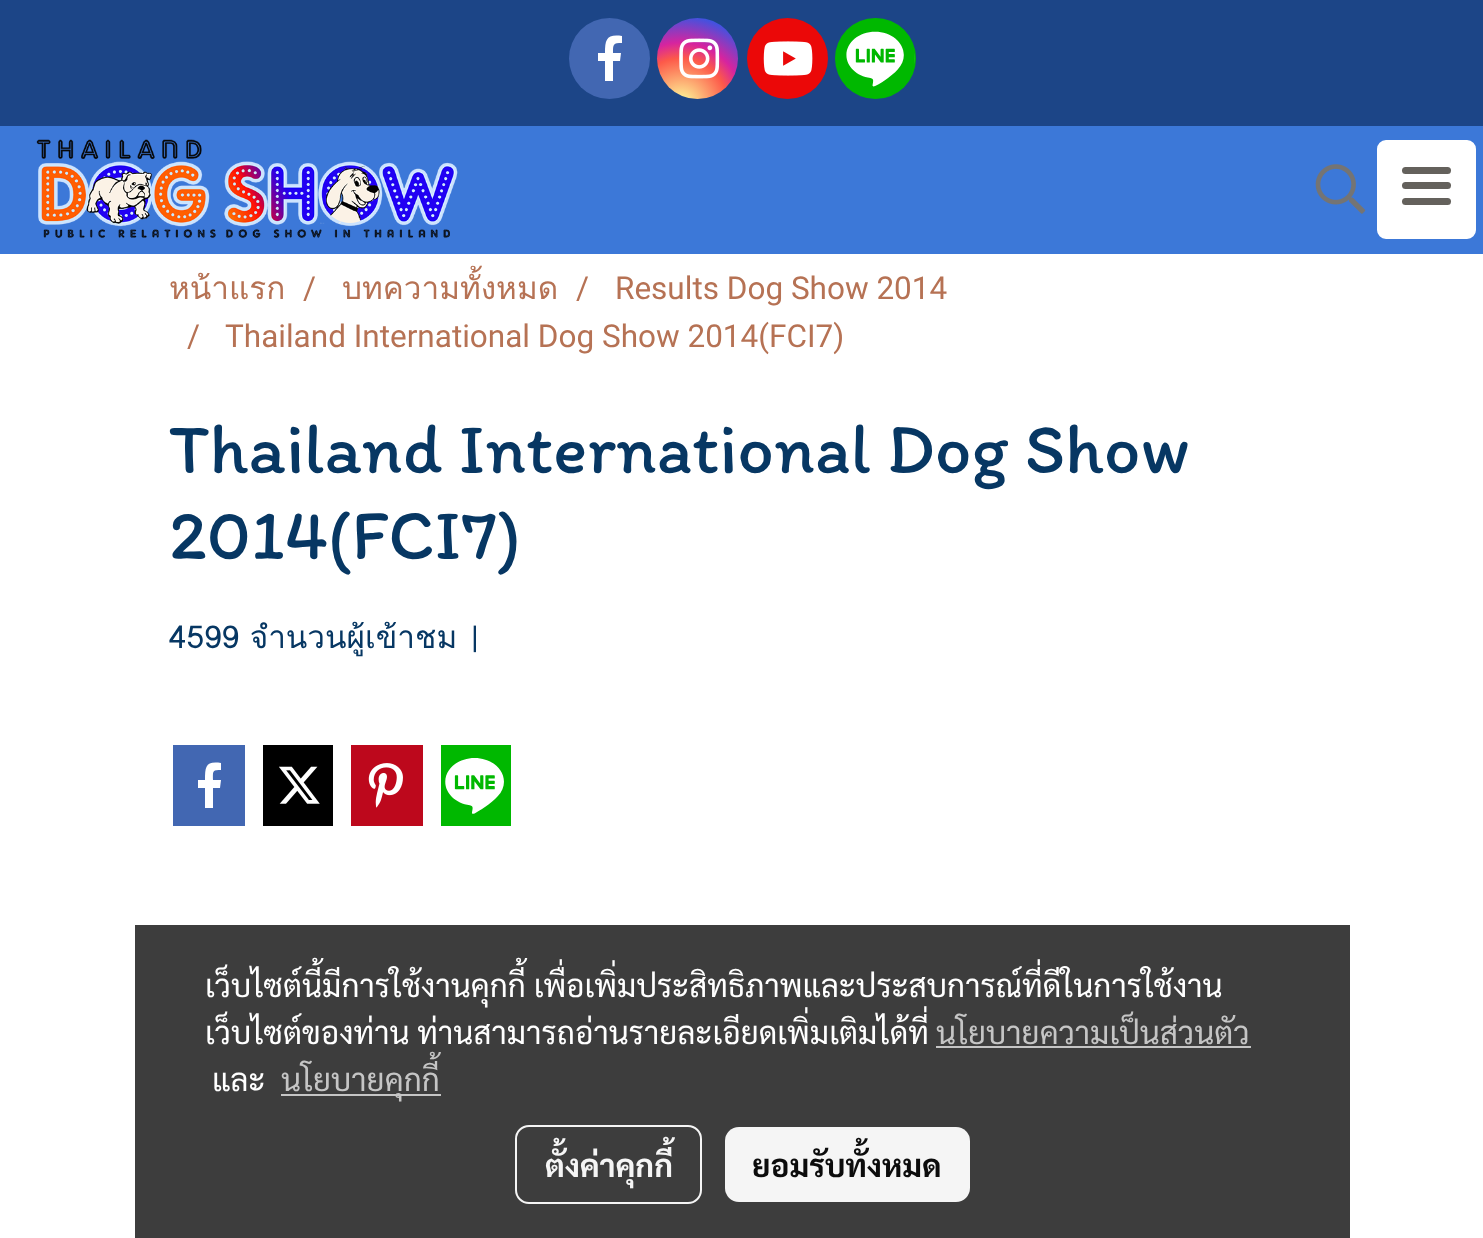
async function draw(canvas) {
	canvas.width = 1483;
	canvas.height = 1238;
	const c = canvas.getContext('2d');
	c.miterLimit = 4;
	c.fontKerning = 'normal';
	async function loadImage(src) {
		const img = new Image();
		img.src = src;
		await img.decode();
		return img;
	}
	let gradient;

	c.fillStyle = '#fff';
	c.fillRect(0, 0, 1483, 1238);
	c.fillStyle = '#3c78d8';
	c.fillRect(0, 126, 1483, 128);
	c.fillStyle = '#1c4587';
	c.fillRect(0, 0, 1483, 126);
	c.fillStyle = '#4267b2';
	c.beginPath();
	c.arc(609.5, 58.5, 40.5, 0, 2 * Math.PI);
	c.fill();
	c.fillStyle = '#fff';
	c.beginPath();
	c.moveTo(605, 81);
	c.lineTo(605, 61);
	c.lineTo(598, 61);
	c.lineTo(598, 53);
	c.lineTo(605, 53);
	c.bezierCurveTo(605, 39, 607, 34, 622, 36);
	c.lineTo(622, 43);
	c.bezierCurveTo(613, 43, 613, 44, 613, 53);
	c.lineTo(621, 53);
	c.lineTo(620, 61);
	c.lineTo(613, 61);
	c.lineTo(613, 81);
	c.fill();
	gradient = c.createRadialGradient(681, 105, 0, 681, 105, 104);
	gradient.addColorStop(0, '#fdf497');
	gradient.addColorStop(0.05, '#fdf497');
	gradient.addColorStop(0.45, '#fd5949');
	gradient.addColorStop(0.6, '#d6249f');
	gradient.addColorStop(0.9, '#285aeb');
	c.fillStyle = gradient;
	c.beginPath();
	c.arc(697.5, 58.5, 40.5, 0, 2 * Math.PI);
	c.fill();
	c.drawImage(await loadImage('img1.png'), 679, 38, 41, 41);
	c.fillStyle = '#eb0808';
	c.beginPath();
	c.arc(787.5, 58.5, 40.5, 0, 2 * Math.PI);
	c.fill();
	c.drawImage(await loadImage('img2.png'), 763, 41, 50, 35);
	c.fillStyle = '#00b800';
	c.beginPath();
	c.arc(875.5, 58.5, 40.5, 0, 2 * Math.PI);
	c.fill();
	c.drawImage(await loadImage('img3.png'), 846, 31, 69, 56);
	c.drawImage(await loadImage('img4.png'), 36, 139, 422, 99);
	c.drawImage(await loadImage('img5.png'), 1315, 164, 51, 50);
	c.fillStyle = '#fff';
	c.beginPath();
	c.roundRect(1378, 141, 97, 97, 8);
	c.fill();
	c.strokeStyle = '#fff';
	c.lineWidth = 2;
	c.stroke();
	c.fillStyle = '#64615c';
	c.beginPath();
	c.roundRect(1402, 182, 49, 7, 3.5);
	c.fill();
	c.beginPath();
	c.roundRect(1402, 167, 49, 7, 3.5);
	c.fill();
	c.beginPath();
	c.roundRect(1402, 198, 49, 7, 3.5);
	c.fill();
	c.font = '31.5px Loma';
	c.fillStyle = '#b67254';
	c.fillText('หน้าแรก', 169, 299);
	c.font = '31.5px Roboto';
	c.fillText('/', 303, 299);
	c.font = '31.5px Loma';
	c.fillText('บทความทั้งหมด', 342, 299);
	c.font = '31.5px Roboto';
	for (const [text, x, y] of [
		['/', 576, 299],
		['Results Dog Show 2014', 615, 299],
		['/', 187, 347],
		['Thailand International Dog Show 2014(FCI7)', 225, 347],
	]) {
		c.fillText(text, x, y);
	}
	c.font = '72px Itim';
	c.fillStyle = '#073763';
	c.fillText('Thailand International Dog Show', 169, 473);
	c.fillText('2014(FCI7)', 169, 559);
	c.font = '31.5px Loma';
	c.fillText('4599 จำนวนผู้เข้าชม', 169, 648);
	c.font = '31.5px Roboto';
	c.fillText('|', 471, 648);
	c.fillStyle = '#4267b2';
	c.fillRect(173, 745, 72, 81);
	c.fillStyle = '#fff';
	c.beginPath();
	c.moveTo(205, 808);
	c.lineTo(205, 788);
	c.lineTo(198, 788);
	c.lineTo(198, 780);
	c.lineTo(205, 780);
	c.bezierCurveTo(205, 766, 206, 761, 221, 763);
	c.lineTo(221, 770);
	c.bezierCurveTo(212, 770, 213, 771, 213, 780);
	c.lineTo(221, 780);
	c.lineTo(220, 788);
	c.lineTo(213, 788);
	c.lineTo(213, 808);
	c.fill();
	c.fillStyle = '#000';
	c.fillRect(263, 745, 70, 81);
	c.drawImage(await loadImage('img6.png'), 279, 766, 41, 38);
	c.fillStyle = '#bd081c';
	c.fillRect(351, 745, 72, 81);
	c.drawImage(await loadImage('img7.png'), 368, 763, 35, 45);
	c.fillStyle = '#00b800';
	c.fillRect(441, 745, 70, 81);
	c.drawImage(await loadImage('img8.png'), 445, 758, 59, 56);
	c.fillStyle = '#000000c2';
	c.fillRect(135, 925, 1215, 313);
	c.font = '31.5px Sarabun';
	c.fillStyle = '#fff';
	c.fillText('เว็บไซต์นี้มีการใช้งานคุกกี้ เพื่อเพิ่มประสิทธิภาพและประสบการณ์ที่ดีในการใช้งาน', 205, 997);
	c.fillText('เว็บไซต์ของท่าน ท่านสามารถอ่านรายละเอียดเพิ่มเติมได้ที่', 205, 1044);
	c.fillStyle = '#c5c5c5';
	c.fillText('นโยบายความเป็นส่วนตัว', 936, 1044);
	c.fillRect(936, 1046, 315, 2);
	c.fillStyle = '#fff';
	c.fillText('และ', 212, 1091);
	c.fillStyle = '#c5c5c5';
	c.fillRect(281, 1094, 160, 2);
	c.fillText('นโยบายคุกกี้', 281, 1091);
	c.beginPath();
	c.roundRect(516, 1126, 185, 77, 13);
	c.strokeStyle = '#fffffff2';
	c.stroke();
	c.font = 'bold 31.5px Sarabun';
	c.fillStyle = '#f5f5f5';
	c.fillText('ตั้งค่าคุกกี้', 545, 1177);
	c.fillStyle = '#fffffff2';
	c.beginPath();
	c.roundRect(725, 1127, 245, 75, 14);
	c.fill();
	c.fillStyle = '#0c0c0c';
	c.fillText('ยอมรับทั้งหมด', 752, 1177);
}

draw(document.querySelector('canvas'));
